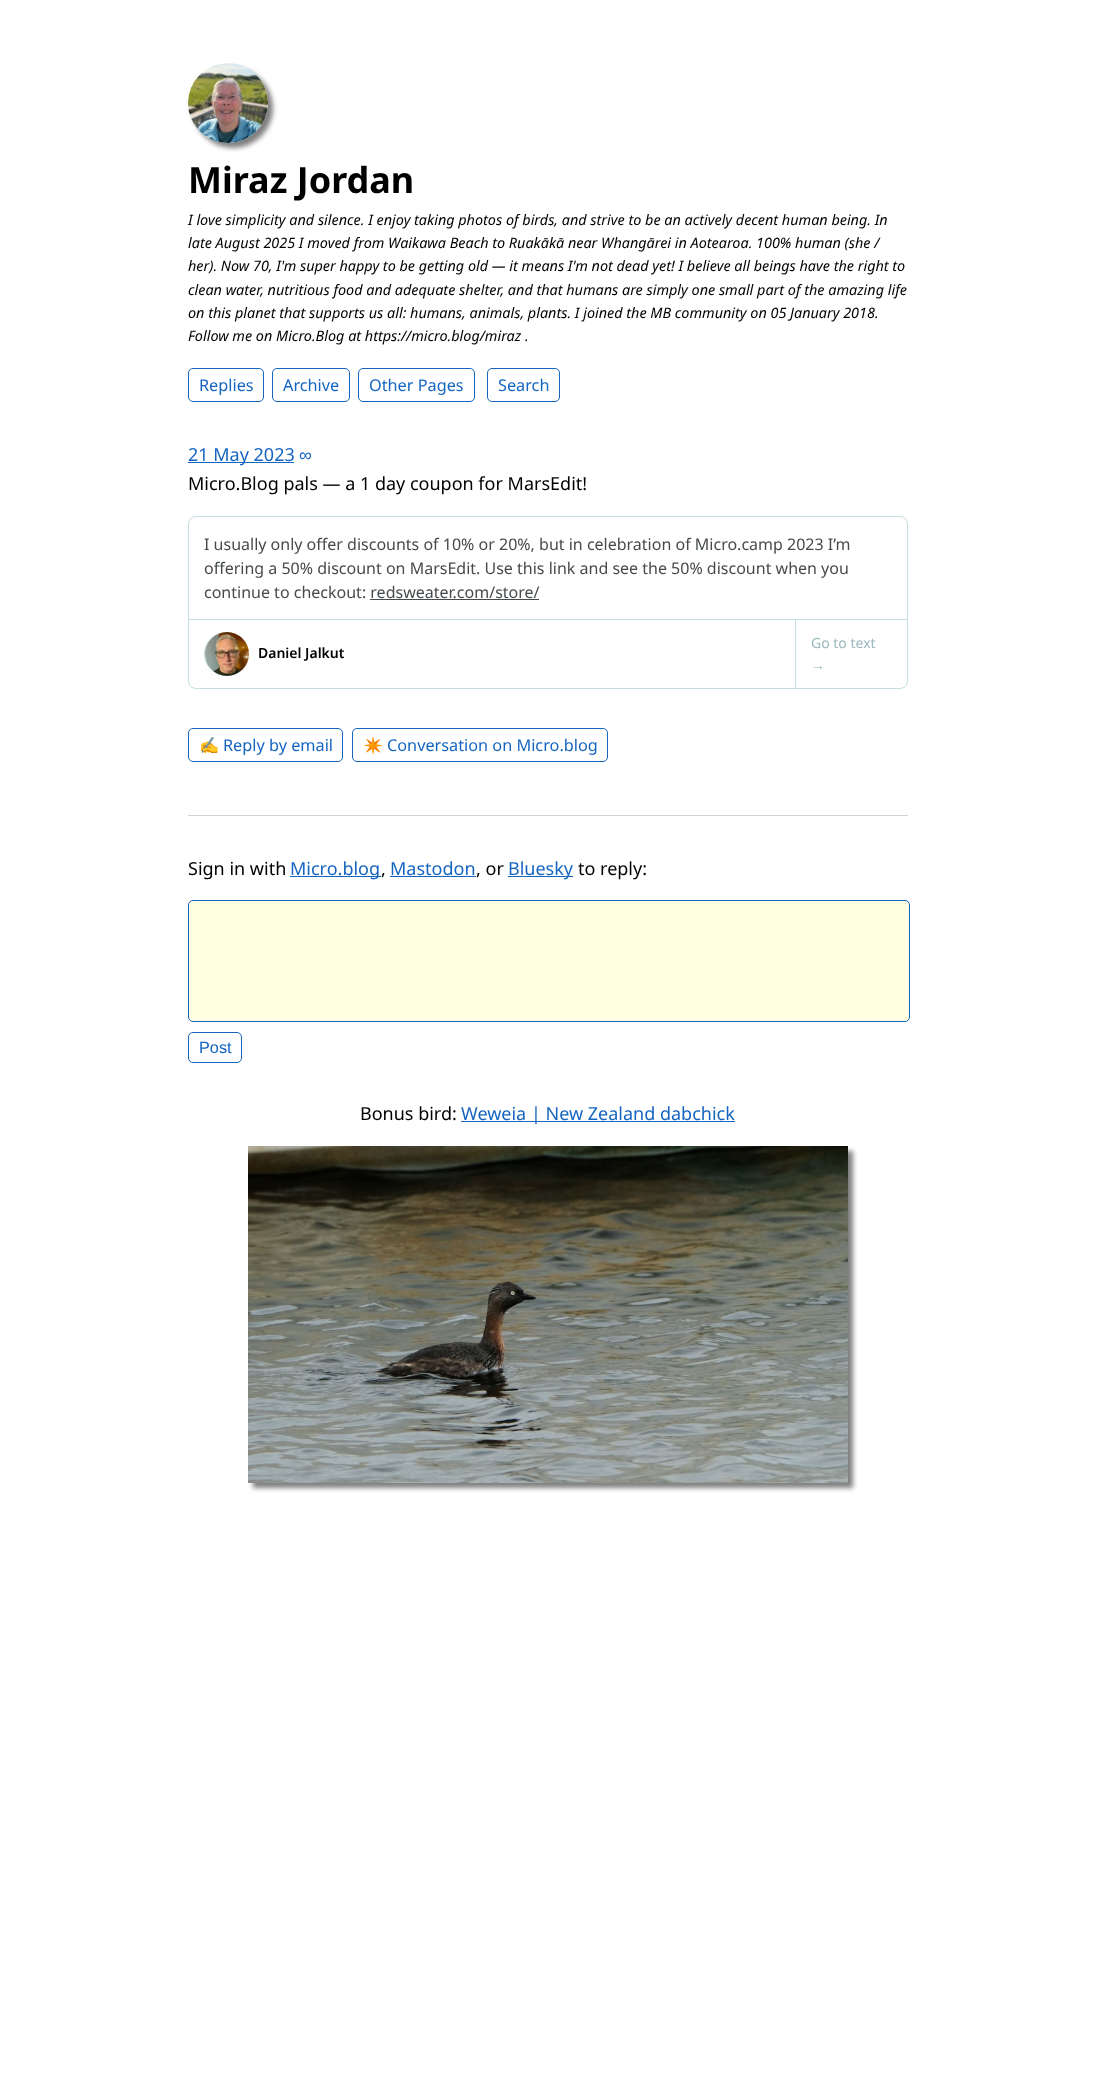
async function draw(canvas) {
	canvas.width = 1095;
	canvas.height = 2075;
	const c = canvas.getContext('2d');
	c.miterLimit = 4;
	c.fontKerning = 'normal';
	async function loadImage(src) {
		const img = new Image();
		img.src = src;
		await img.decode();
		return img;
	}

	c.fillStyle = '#fff';
	c.fillRect(0, 0, 1095, 2075);
	c.fillStyle = '#808080';
	c.filter = 'blur(2.5px)';
	c.beginPath();
	c.roundRect(193, 68, 80, 80, 40);
	c.fill();
	c.filter = 'none';
	c.fillStyle = '#fff';
	c.beginPath();
	c.arc(228, 103, 40, 0, 2 * Math.PI);
	c.fill();
	c.drawImage(await loadImage('img1.png'), 188, 63, 80, 80);
	c.font = 'bold 36px Noto Sans';
	c.fillStyle = '#000';
	c.fillText('Miraz Jordan', 188, 193);
	c.font = 'italic 14.4px Noto Sans';
	for (const [text, x, y] of [
		['I love simplicity and silence. I enjoy taking photos of birds, and strive to be an actively decent human being. In', 188, 225],
		['late August 2025 I moved from Waikawa Beach to Ruakākā near Whangārei in Aotearoa. 100% human (she /', 188, 248],
		['her). Now 70, I\'m super happy to be getting old — it means I\'m not dead yet! I believe all beings have the right to', 188, 271],
		['clean water, nutritious food and adequate shelter, and that humans are simply one small part of the amazing life', 188, 295],
		['on this planet that supports us all: humans, animals, plants. I joined the MB community on 05 January 2018.', 188, 318],
		['Follow me on Micro.Blog at https://micro.blog/miraz .', 188, 341],
	]) {
		c.fillText(text, x, y);
	}
	c.beginPath();
	c.roundRect(188.5, 368.5, 75, 33, 4.5);
	c.strokeStyle = '#1565c0';
	c.stroke();
	c.font = '16.25px Noto Sans';
	c.fillStyle = '#1565c0';
	c.fillText('Replies', 199, 391);
	c.beginPath();
	c.roundRect(272.5, 368.5, 77, 33, 4.5);
	c.stroke();
	c.fillText('Archive', 283, 391);
	c.beginPath();
	c.roundRect(358.5, 368.5, 116, 33, 4.5);
	c.stroke();
	c.fillText('Other Pages', 369, 391);
	c.beginPath();
	c.roundRect(487.5, 368.5, 72, 33, 4.5);
	c.stroke();
	c.fillText('Search', 498, 391);
	c.fillRect(188, 462, 106, 1);
	c.font = '18px Noto Sans';
	c.fillText('21 May 2023', 188, 461);
	c.font = '18px Liberation Sans';
	c.fillText('∞', 299, 461);
	c.font = '18px Noto Sans';
	c.fillStyle = '#000';
	c.fillText('Micro.Blog pals — a 1 day coupon for MarsEdit!', 188, 490);
	c.beginPath();
	c.roundRect(188.5, 516.5, 719, 172, 7.5);
	c.strokeStyle = '#c2dfe3';
	c.stroke();
	c.font = '16px Noto Sans';
	c.fillStyle = '#464a4d';
	for (const [text, x, y] of [
		['I usually only offer discounts of 10% or 20%, but in celebration of Micro.camp 2023 I’m', 204, 550],
		['offering a 50% discount on MarsEdit. Use this link and see the 50% discount when you', 204, 574],
		['continue to checkout: redsweater.com/store/', 204, 598],
	]) {
		c.fillText(text, x, y);
	}
	c.fillRect(370, 599, 169, 1);
	c.fillStyle = '#c2dfe3';
	c.fillRect(189, 619, 718, 1);
	c.beginPath();
	c.arc(226, 654, 21.5, 0, 2 * Math.PI);
	c.stroke();
	c.drawImage(await loadImage('img2.png'), 205, 632, 44, 44);
	c.font = '600 14px Noto Sans';
	c.fillStyle = '#000';
	c.fillText('Daniel Jalkut', 258, 658);
	c.fillStyle = '#c2dfe3';
	c.fillRect(795, 620, 1, 68);
	c.font = '14px Noto Sans';
	c.fillStyle = '#9db8bf';
	c.fillText('Go to text', 811, 648);
	c.font = '14px Liberation Sans';
	c.fillText('→', 811, 670);
	c.beginPath();
	c.roundRect(188.5, 728.5, 154, 33, 4.5);
	c.strokeStyle = '#1565c0';
	c.stroke();
	c.font = '16.25px Noto Color Emoji';
	c.fillStyle = '#1565c0';
	c.fillText('✍️', 199, 751);
	c.font = '16.25px Noto Sans';
	c.fillText('Reply by email', 223, 751);
	c.beginPath();
	c.roundRect(352.5, 728.5, 255, 33, 4.5);
	c.stroke();
	c.font = '16.25px Noto Color Emoji';
	c.fillText('✴️', 363, 751);
	c.font = '16.25px Noto Sans';
	c.fillText('Conversation on Micro.blog', 387, 751);
	c.fillStyle = '#d3d3d3';
	c.fillRect(188, 815, 720, 1);
	c.font = '18px Noto Sans';
	c.fillStyle = '#000';
	c.fillText('Sign in with', 188, 875);
	c.fillStyle = '#1565c0';
	c.fillRect(290, 876, 91, 1);
	c.fillText('Micro.blog', 290, 875);
	c.fillStyle = '#000';
	c.fillText(',', 381, 875);
	c.fillStyle = '#1565c0';
	c.fillText('Mastodon', 390, 875);
	c.fillRect(390, 876, 86, 1);
	c.fillStyle = '#000';
	c.fillText(', or', 476, 875);
	c.fillStyle = '#1565c0';
	c.fillRect(508, 876, 65, 1);
	c.fillText('Bluesky', 508, 875);
	c.fillStyle = '#000';
	c.fillText('to reply:', 578, 875);
	c.fillStyle = '#fffee0';
	c.beginPath();
	c.roundRect(188.5, 900.5, 721, 121, 4.5);
	c.fill();
	c.stroke();
	c.beginPath();
	c.roundRect(188.5, 1032.5, 53, 30, 4.5);
	c.stroke();
	c.font = '16.25px Liberation Sans';
	c.fillStyle = '#1565c0';
	c.fillText('Post', 199, 1053);
	c.font = '18px Noto Sans';
	c.fillStyle = '#000';
	c.fillText('Bonus bird:', 360, 1120);
	c.fillStyle = '#1565c0';
	c.fillRect(461, 1121, 274, 1);
	c.fillText('Weweia | New Zealand dabchick', 461, 1120);
	c.fillStyle = '#808080';
	c.filter = 'blur(2.5px)';
	c.beginPath();
	c.rect(253, 1151, 600, 337);
	c.fill();
	c.filter = 'none';
	c.drawImage(await loadImage('img3.png'), 248, 1146, 600, 337);
}

draw(document.querySelector('canvas'));
